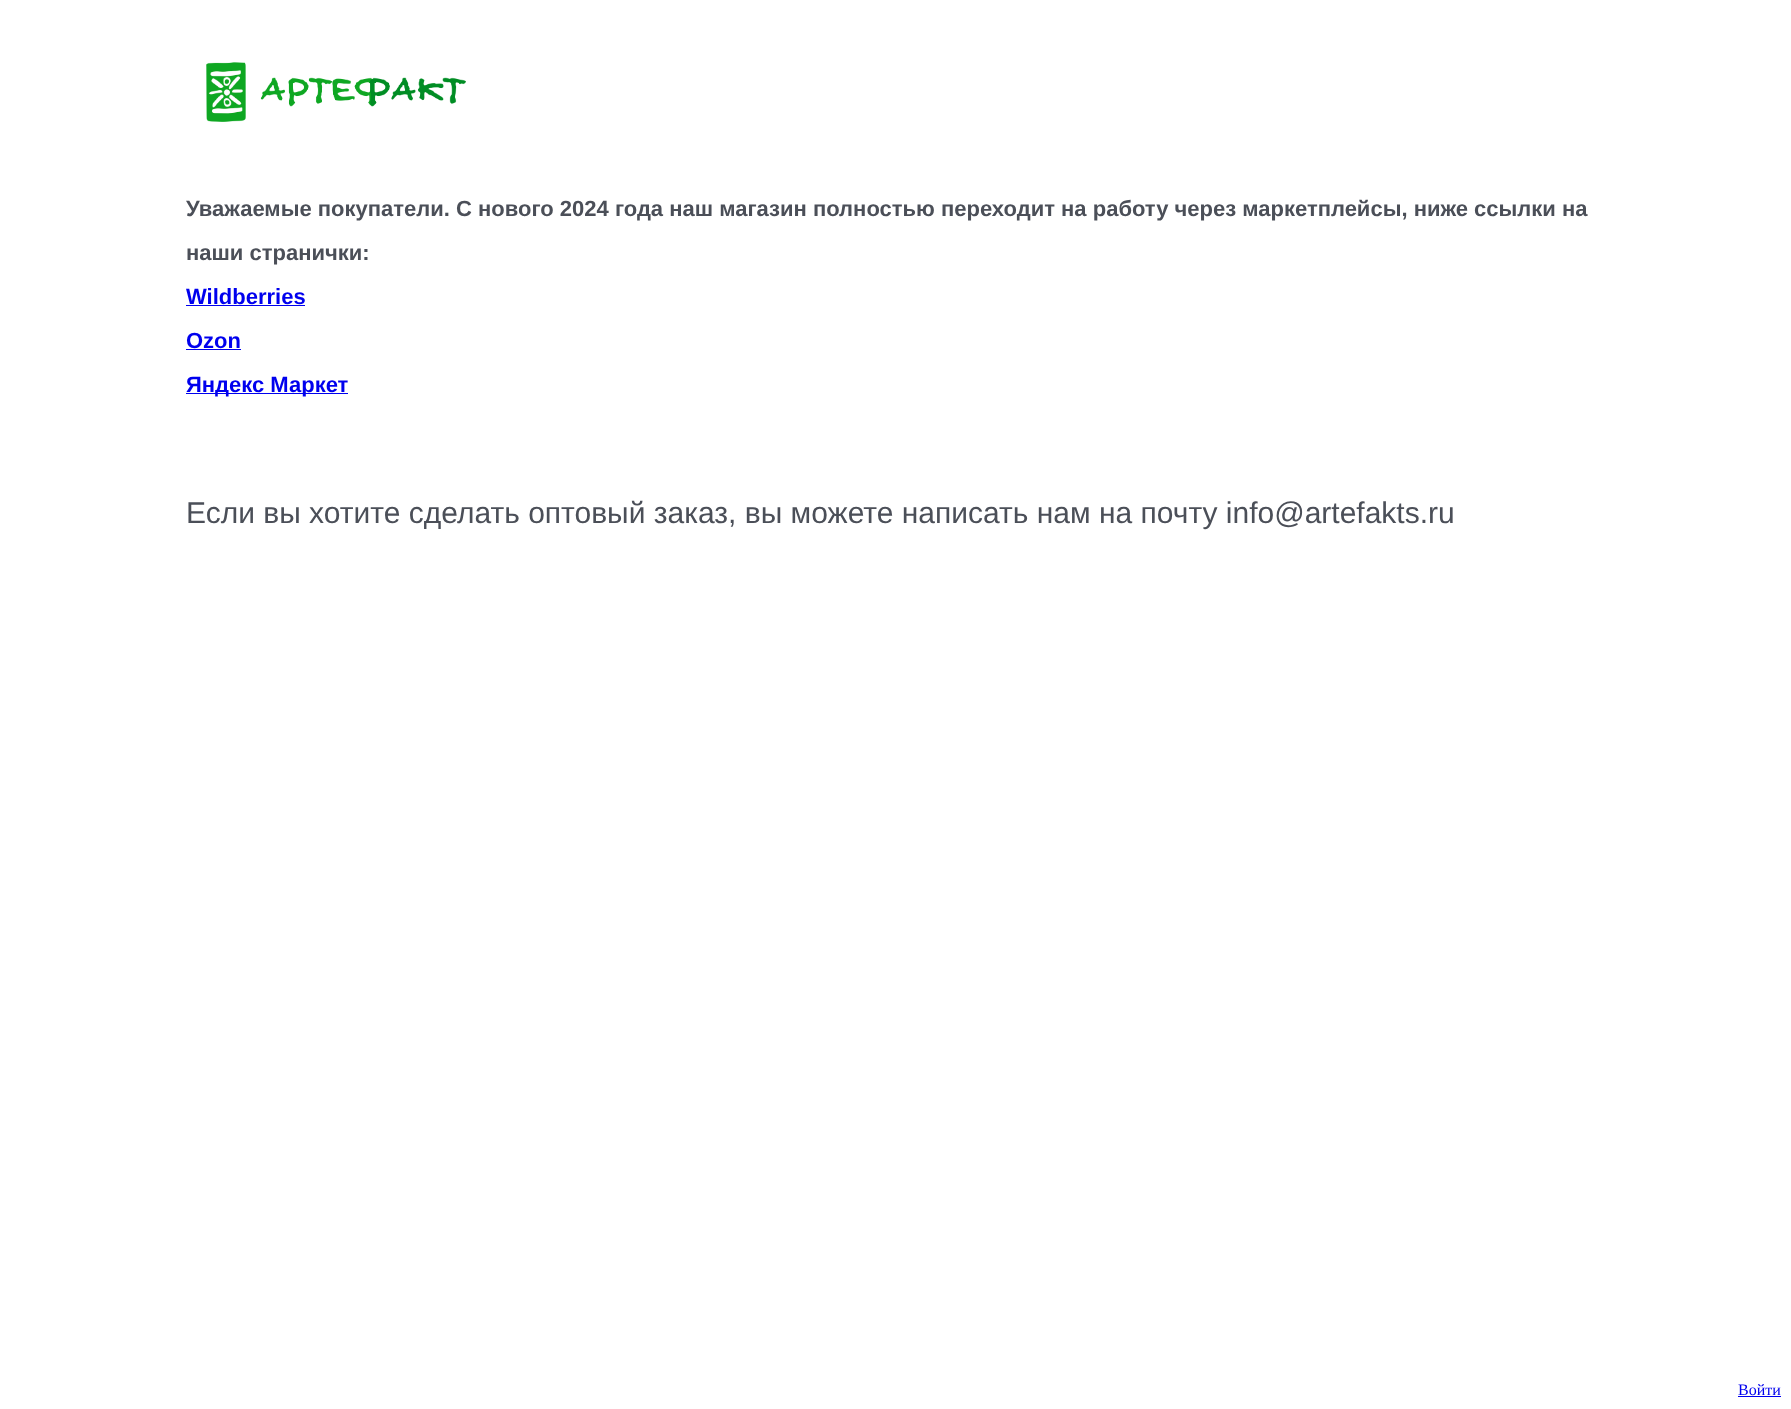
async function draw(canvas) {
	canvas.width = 1791;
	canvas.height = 1409;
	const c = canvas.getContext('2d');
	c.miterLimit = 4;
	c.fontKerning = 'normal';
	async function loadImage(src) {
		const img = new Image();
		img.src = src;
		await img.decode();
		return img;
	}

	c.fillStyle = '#fff';
	c.fillRect(0, 0, 1791, 1409);
	c.drawImage(await loadImage('img1.png'), 206, 62, 260, 60);
	c.font = 'bold 22px Liberation Sans';
	c.fillStyle = '#4b4f58';
	c.fillText('Уважаемые покупатели. С нового 2024 года наш магазин полностью переходит на работу через маркетплейсы, ниже ссылки на', 186, 216);
	c.fillText('наши странички:', 186, 260);
	c.fillStyle = '#00e';
	c.fillText('Wildberries', 186, 304);
	c.fillRect(186, 305, 119, 1);
	c.fillText('Ozon', 186, 348);
	c.fillRect(186, 349, 55, 1);
	c.fillRect(186, 393, 162, 1);
	c.fillText('Яндекс Маркет', 186, 392);
	c.font = '30px Liberation Sans';
	c.fillStyle = '#4b4f58';
	c.fillText('Если вы хотите сделать оптовый заказ, вы можете написать нам на почту info@artefakts.ru', 186, 523);
	c.font = '16px Liberation Serif';
	c.fillStyle = '#00e';
	c.fillText('Войти', 1738, 1395);
	c.fillRect(1738, 1396, 43, 1);
}

draw(document.querySelector('canvas'));
